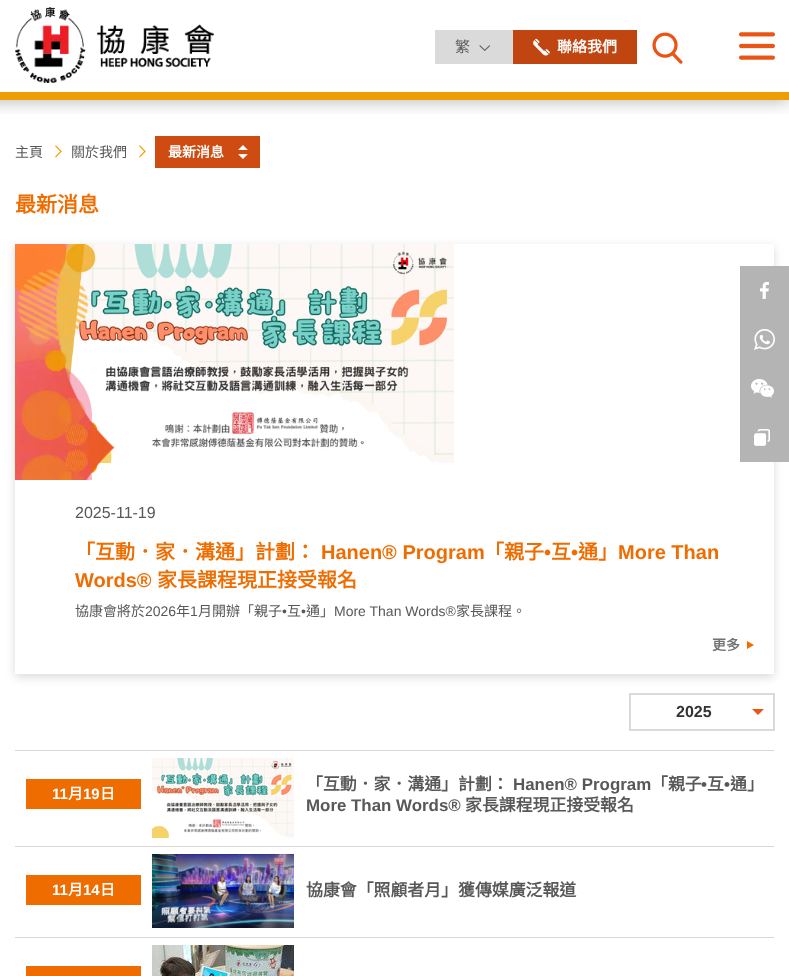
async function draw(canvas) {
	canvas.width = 789;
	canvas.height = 976;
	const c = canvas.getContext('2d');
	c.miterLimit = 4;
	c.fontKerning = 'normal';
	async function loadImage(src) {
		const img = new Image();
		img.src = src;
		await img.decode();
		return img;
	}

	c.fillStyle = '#fff';
	c.fillRect(0, 0, 789, 976);
	c.save();
	c.beginPath();
	c.rect(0, 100, 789, 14);
	c.clip();
	c.fillStyle = '#00000059';
	c.filter = 'blur(9.5px)';
	c.beginPath();
	c.rect(-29, -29, 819, 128);
	c.fill();
	c.filter = 'none';
	c.restore();
	c.fillStyle = '#ef9d00';
	c.fillRect(0, 92, 789, 8);
	c.drawImage(await loadImage('img1.png'), 15, 7, 199, 76);
	c.fillStyle = '#dadada';
	c.fillRect(435, 30, 78, 34);
	c.font = '15px Noto Sans CJK HK';
	c.fillStyle = '#5f5d5d';
	c.fillText('繁', 455, 52);
	c.drawImage(await loadImage('img2.png'), 479, 45, 12, 6);
	c.fillStyle = '#c04511';
	c.fillRect(513, 30, 124, 34);
	c.drawImage(await loadImage('img3.png'), 533, 38, 17, 18);
	c.font = 'bold 15px Noto Sans CJK HK';
	c.fillStyle = '#fff';
	c.fillText('聯絡我們', 557, 52);
	c.drawImage(await loadImage('img4.png'), 652, 32, 31, 32);
	c.drawImage(await loadImage('img5.png'), 739, 32, 36, 28);
	c.font = '14px Noto Sans CJK HK';
	c.fillStyle = '#585858';
	c.fillText('主頁', 15, 157);
	c.drawImage(await loadImage('img6.png'), 55, 145, 7, 13);
	c.fillText('關於我們', 71, 157);
	c.drawImage(await loadImage('img6.png'), 139, 145, 7, 13);
	c.fillStyle = '#ce4b12';
	c.fillRect(155, 136, 105, 32);
	c.font = 'bold 14px Noto Sans CJK HK';
	c.fillStyle = '#fff';
	c.fillText('最新消息', 168, 157);
	c.drawImage(await loadImage('img7.png'), 238, 145, 10, 14);
	c.font = 'bold 21px Noto Sans CJK HK';
	c.fillStyle = '#ef6c00';
	c.fillText('最新消息', 15, 212);
	c.save();
	c.beginPath();
	c.moveTo(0, 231);
	c.lineTo(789, 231);
	c.lineTo(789, 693);
	c.lineTo(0, 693);
	c.closePath();
	c.moveTo(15, 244);
	c.lineTo(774, 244);
	c.lineTo(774, 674);
	c.lineTo(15, 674);
	c.closePath();
	c.clip('evenodd');
	c.fillStyle = '#00000026';
	c.filter = 'blur(5px)';
	c.beginPath();
	c.rect(15, 247, 759, 430);
	c.fill();
	c.filter = 'none';
	c.restore();
	c.drawImage(await loadImage('img9.png'), 69, 244, 385, 219);
	c.drawImage(await loadImage('img8.png'), 15, 244, 100, 236);
	c.font = '16px Liberation Sans';
	c.fillStyle = '#585858';
	c.fillText('2025-11-19', 75, 518);
	c.font = 'bold 20px Noto Sans CJK HK';
	c.fillStyle = '#ef6c00';
	c.fillText('「互動．家．溝通」計劃：', 75, 559);
	c.font = 'bold 20px Liberation Sans';
	c.fillText('Hanen® Program', 321, 559);
	c.font = 'bold 20px Noto Sans CJK HK';
	c.fillText('「親子', 484, 559);
	c.font = 'bold 20px Liberation Sans';
	c.fillText('•', 544, 559);
	c.font = 'bold 20px Noto Sans CJK HK';
	c.fillText('互', 551, 559);
	c.font = 'bold 20px Liberation Sans';
	c.fillText('•', 571, 559);
	c.font = 'bold 20px Noto Sans CJK HK';
	c.fillText('通」', 578, 559);
	c.font = 'bold 20px Liberation Sans';
	c.fillText('More Than', 618, 559);
	c.fillText('Words®', 75, 587);
	c.font = 'bold 20px Noto Sans CJK HK';
	c.fillText('家長課程現正接受報名', 157, 587);
	c.font = '14px Noto Sans CJK HK';
	c.fillStyle = '#585858';
	c.fillText('協康會將於', 75, 616);
	c.font = '14px Liberation Sans';
	c.fillText('2026', 145, 616);
	c.font = '14px Noto Sans CJK HK';
	c.fillText('年', 176, 616);
	c.font = '14px Liberation Sans';
	c.fillText('1', 190, 616);
	c.font = '14px Noto Sans CJK HK';
	c.fillText('月開辦「親子', 198, 616);
	c.font = '14px Liberation Sans';
	c.fillText('•', 282, 616);
	c.font = '14px Noto Sans CJK HK';
	c.fillText('互', 287, 616);
	c.font = '14px Liberation Sans';
	c.fillText('•', 301, 616);
	c.font = '14px Noto Sans CJK HK';
	c.fillText('通」', 306, 616);
	c.font = '14px Liberation Sans';
	c.fillText('More Than Words®', 334, 616);
	c.font = '14px Noto Sans CJK HK';
	c.fillText('家長課程。', 456, 616);
	c.font = 'bold 14px Noto Sans CJK HK';
	c.fillStyle = '#737373';
	c.fillText('更多', 712, 650);
	c.fillStyle = '#ef6c00';
	c.beginPath();
	c.moveTo(747, 649);
	c.lineTo(747, 641);
	c.lineTo(754, 645);
	c.closePath();
	c.fill();
	c.fillStyle = '#ea5515';
	c.beginPath();
	c.moveTo(752, 709);
	c.lineTo(764, 709);
	c.lineTo(758, 715);
	c.closePath();
	c.fill();
	c.strokeStyle = '#dadada';
	c.strokeRect(629.5, 693.5, 145, 37);
	c.strokeRect(630.5, 694.5, 143, 35);
	c.font = 'bold 16px Liberation Sans';
	c.fillStyle = '#333';
	c.fillText('2025', 676, 717);
	c.fillStyle = '#dadada';
	c.fillRect(15, 750, 759, 1);
	c.fillStyle = '#ef6c00';
	c.fillRect(26, 779, 115, 30);
	c.font = 'bold 15px Liberation Sans';
	c.fillStyle = '#fff';
	c.fillText('11', 52, 799);
	c.font = 'bold 15px Noto Sans CJK HK';
	c.fillText('月', 68, 799);
	c.font = 'bold 15px Liberation Sans';
	c.fillText('19', 83, 799);
	c.font = 'bold 15px Noto Sans CJK HK';
	c.fillText('日', 100, 799);
	c.drawImage(await loadImage('img10.png'), 152, 758, 142, 80);
	c.font = 'bold 16.9px Noto Sans CJK HK';
	c.fillStyle = '#585858';
	c.fillText('「互動．家．溝通」計劃：', 306, 790);
	c.font = 'bold 16.9px Liberation Sans';
	c.fillText('Hanen® Program', 513, 790);
	c.font = 'bold 16.9px Noto Sans CJK HK';
	c.fillText('「親子', 651, 790);
	c.font = 'bold 16.9px Liberation Sans';
	c.fillText('•', 701, 790);
	c.font = 'bold 16.9px Noto Sans CJK HK';
	c.fillText('互', 707, 790);
	c.font = 'bold 16.9px Liberation Sans';
	c.fillText('•', 724, 790);
	c.font = 'bold 16.9px Noto Sans CJK HK';
	c.fillText('通」', 730, 790);
	c.font = 'bold 16.9px Liberation Sans';
	c.fillText('More Than Words®', 306, 811);
	c.font = 'bold 16.9px Noto Sans CJK HK';
	c.fillText('家長課程現正接受報名', 465, 811);
	c.fillStyle = '#dadada';
	c.fillRect(15, 846, 759, 1);
	c.fillStyle = '#ef6c00';
	c.fillRect(26, 875, 115, 30);
	c.font = 'bold 15px Liberation Sans';
	c.fillStyle = '#fff';
	c.fillText('11', 52, 895);
	c.font = 'bold 15px Noto Sans CJK HK';
	c.fillText('月', 68, 895);
	c.font = 'bold 15px Liberation Sans';
	c.fillText('14', 83, 895);
	c.font = 'bold 15px Noto Sans CJK HK';
	c.fillText('日', 100, 895);
	c.drawImage(await loadImage('img11.png'), 152, 854, 142, 74);
	c.font = 'bold 16.9px Noto Sans CJK HK';
	c.fillStyle = '#585858';
	c.fillText('協康會「照顧者月」獲傳媒廣泛報道', 306, 896);
	c.fillStyle = '#dadada';
	c.fillRect(15, 937, 759, 1);
	c.fillStyle = '#ef6c00';
	c.fillRect(26, 966, 115, 10);
	c.drawImage(await loadImage('img12.png'), 152, 945, 142, 31);
	c.fillStyle = '#b4b4b4';
	c.fillRect(740, 266, 49, 196);
	c.drawImage(await loadImage('img13.png'), 760, 282, 9, 17);
	c.drawImage(await loadImage('img14.png'), 754, 329, 21, 21);
	c.drawImage(await loadImage('img15.png'), 751, 379, 23, 19);
	c.drawImage(await loadImage('img16.png'), 754, 429, 16, 17);
}

draw(document.querySelector('canvas'));
